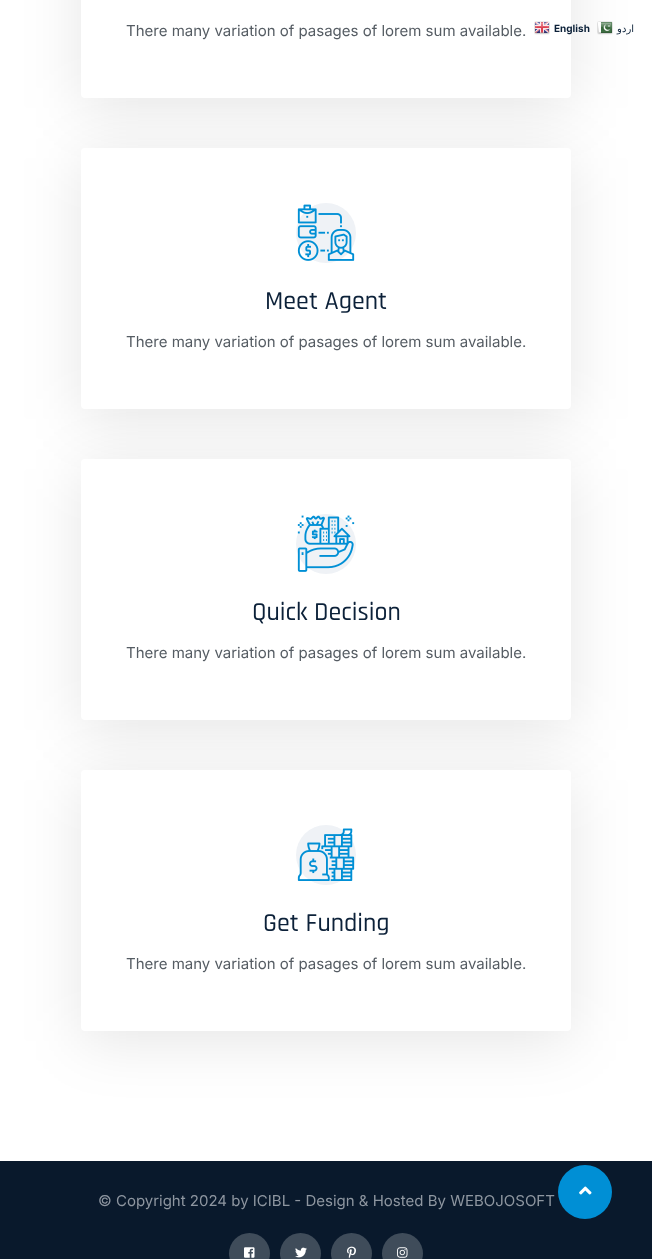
async function draw(canvas) {
	canvas.width = 652;
	canvas.height = 1259;
	const c = canvas.getContext('2d');
	c.miterLimit = 4;
	c.fontKerning = 'normal';
	async function loadImage(src) {
		const img = new Image();
		img.src = src;
		await img.decode();
		return img;
	}

	c.fillStyle = '#fff';
	c.fillRect(0, 0, 652, 1259);
	c.fillStyle = '#0000001a';
	c.filter = 'blur(30px)';
	c.beginPath();
	c.roundRect(81, -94, 490, 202, 4);
	c.fill();
	c.filter = 'none';
	c.fillStyle = '#fff';
	c.beginPath();
	c.roundRect(81, -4, 490, 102, 4);
	c.fill();
	c.font = '15px Inter';
	c.fillStyle = '#555c63';
	c.fillText('There many variation of pasages of lorem sum available.', 126, 36);
	c.fillStyle = '#0000001a';
	c.filter = 'blur(30px)';
	c.beginPath();
	c.roundRect(81, 158, 490, 261, 4);
	c.fill();
	c.filter = 'none';
	c.fillStyle = '#fff';
	c.beginPath();
	c.roundRect(81, 148, 490, 261, 4);
	c.fill();
	c.fillStyle = '#eff2f6';
	c.beginPath();
	c.arc(326, 233, 30, 0, 2 * Math.PI);
	c.fill();
	c.drawImage(await loadImage('img1.png'), 297, 204, 58, 57);
	c.font = '500 26px Rajdhani';
	c.fillStyle = '#0c2139';
	c.fillText('Meet Agent', 265, 309);
	c.font = '15px Inter';
	c.fillStyle = '#555c63';
	c.fillText('There many variation of pasages of lorem sum available.', 126, 347);
	c.fillStyle = '#0000001a';
	c.filter = 'blur(30px)';
	c.beginPath();
	c.roundRect(81, 469, 490, 261, 4);
	c.fill();
	c.filter = 'none';
	c.fillStyle = '#fff';
	c.beginPath();
	c.roundRect(81, 459, 490, 261, 4);
	c.fill();
	c.fillStyle = '#eff2f6';
	c.beginPath();
	c.arc(326, 544, 30, 0, 2 * Math.PI);
	c.fill();
	c.drawImage(await loadImage('img2.png'), 297, 515, 58, 57);
	c.font = '500 26px Rajdhani';
	c.fillStyle = '#0c2139';
	c.fillText('Quick Decision', 252, 620);
	c.font = '15px Inter';
	c.fillStyle = '#555c63';
	c.fillText('There many variation of pasages of lorem sum available.', 126, 658);
	c.fillStyle = '#0000001a';
	c.filter = 'blur(30px)';
	c.beginPath();
	c.roundRect(81, 780, 490, 261, 4);
	c.fill();
	c.filter = 'none';
	c.fillStyle = '#fff';
	c.beginPath();
	c.roundRect(81, 770, 490, 261, 4);
	c.fill();
	c.fillStyle = '#eff2f6';
	c.beginPath();
	c.arc(326, 855, 30, 0, 2 * Math.PI);
	c.fill();
	c.drawImage(await loadImage('img3.png'), 297, 828, 58, 53);
	c.font = '500 26px Rajdhani';
	c.fillStyle = '#0c2139';
	c.fillText('Get Funding', 263, 931);
	c.font = '15px Inter';
	c.fillStyle = '#555c63';
	c.fillText('There many variation of pasages of lorem sum available.', 126, 969);
	c.fillStyle = '#09192c';
	c.fillRect(0, 1161, 652, 98);
	c.fillStyle = '#8e96a0';
	c.fillText('© Copyright 2024 by ICIBL - Design & Hosted By WEBOJOSOFT', 98, 1206);
	c.fillStyle = '#3f4c5a';
	c.beginPath();
	c.arc(249.5, 1253.5, 20.5, 0, 2 * Math.PI);
	c.fill();
	c.drawImage(await loadImage('img4.png'), 244, 1247, 11, 11);
	c.beginPath();
	c.arc(300.5, 1253.5, 20.5, 0, 2 * Math.PI);
	c.fill();
	c.drawImage(await loadImage('img5.png'), 295, 1247, 12, 11);
	c.beginPath();
	c.arc(351.5, 1253.5, 20.5, 0, 2 * Math.PI);
	c.fill();
	c.drawImage(await loadImage('img6.png'), 347, 1246, 9, 13);
	c.beginPath();
	c.arc(402.5, 1253.5, 20.5, 0, 2 * Math.PI);
	c.fill();
	c.drawImage(await loadImage('img7.png'), 397, 1247, 11, 11);
	c.fillStyle = '#008fd5';
	c.beginPath();
	c.arc(585, 1192, 27, 0, 2 * Math.PI);
	c.fill();
	c.drawImage(await loadImage('img8.png'), 579, 1186, 13, 9);
	c.drawImage(await loadImage('img9.png'), 534, 21, 16, 14);
	c.font = 'bold 10px Inter';
	c.fillStyle = '#0c2139';
	c.fillText('English', 554, 32);
	c.drawImage(await loadImage('img10.png'), 597, 21, 16, 14);
	c.direction = 'rtl';
	c.font = '10px DejaVu Sans';
	c.fillText('اردو', 634, 32);
}

draw(document.querySelector('canvas'));
